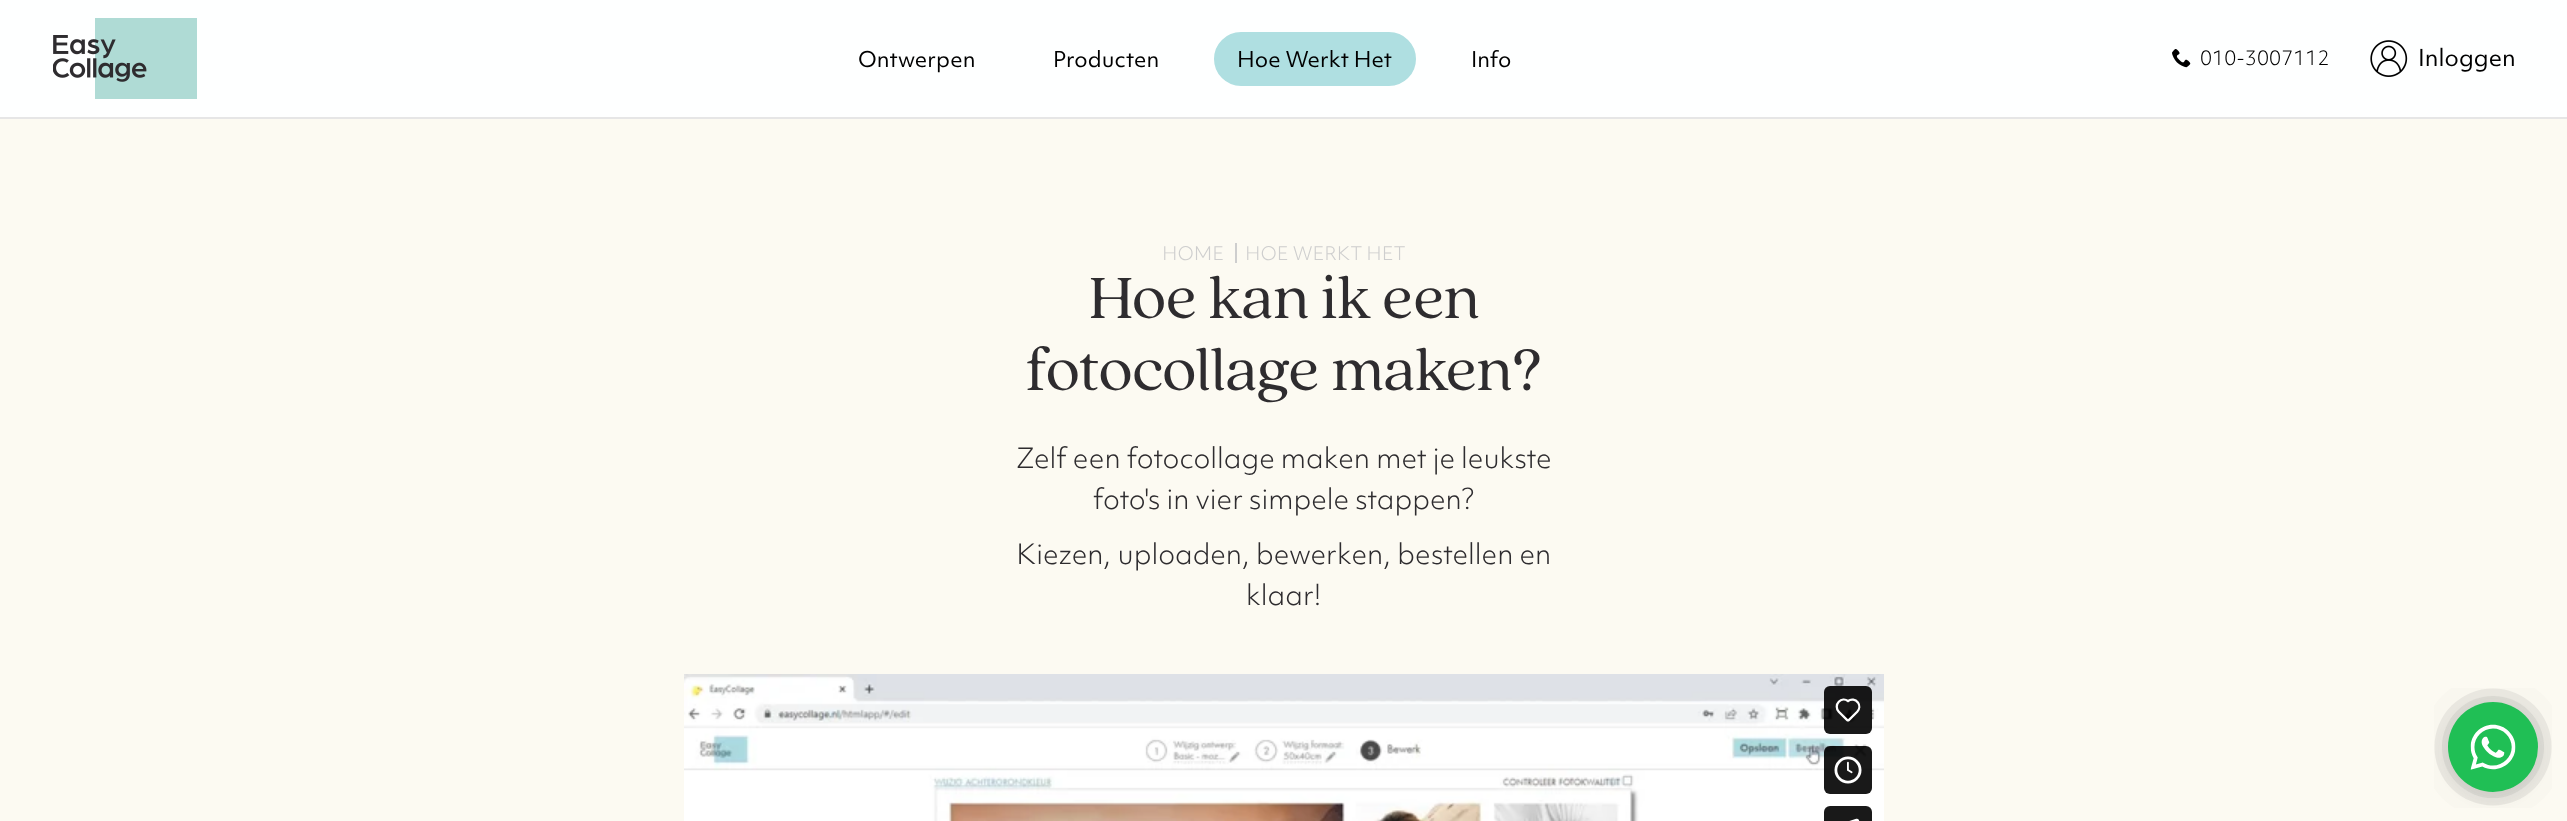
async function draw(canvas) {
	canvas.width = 2567;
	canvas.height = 821;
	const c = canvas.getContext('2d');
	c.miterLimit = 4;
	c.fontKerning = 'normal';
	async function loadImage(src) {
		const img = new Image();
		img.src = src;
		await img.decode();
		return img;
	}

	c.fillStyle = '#fcfaf2';
	c.fillRect(0, 0, 2567, 821);
	c.fillStyle = '#feffff';
	c.fillRect(0, 0, 2567, 117);
	c.fillStyle = '#e6e6e6';
	c.fillRect(0, 117, 2567, 2);
	c.drawImage(await loadImage('img1.png'), 53, 18, 144, 81);
	c.font = '21px "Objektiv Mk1"';
	c.fillStyle = '#000';
	c.fillText('Ontwerpen', 858, 67);
	c.fillText('Producten', 1053, 67);
	c.fillStyle = '#afdfe1';
	c.beginPath();
	c.roundRect(1215, 33, 200, 52, 26);
	c.fill();
	c.strokeStyle = '#afdfe1';
	c.lineWidth = 2;
	c.stroke();
	c.fillStyle = '#000';
	c.fillText('Hoe Werkt Het', 1237, 67);
	c.fillText('Info', 1471, 67);
	c.drawImage(await loadImage('img2.png'), 2172, 49, 19, 19);
	c.font = '300 19.5px "Objektiv Mk1"';
	c.fillText('010-3007112', 2200, 65);
	c.drawImage(await loadImage('img3.png'), 2370, 40, 38, 37);
	c.font = '22.5px "Objektiv Mk1"';
	c.fillText('Inloggen', 2418, 66);
	c.font = '300 18px "Objektiv Mk1"';
	c.fillStyle = '#cecece';
	c.fillText('HOME', 1162, 260);
	c.fillRect(1235, 243, 2, 20);
	c.fillText('HOE WERKT HET', 1245, 260);
	c.font = '64.5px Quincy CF';
	c.fillStyle = '#2e2c2f';
	c.fillText('Hoe kan ik een', 1089, 318);
	c.fillText('fotocollage maken?', 1026, 390);
	c.font = '300 27px "Objektiv Mk1"';
	for (const [text, x, y] of [
		['Zelf een fotocollage maken met je leukste', 1016, 468],
		['foto\'s in vier simpele stappen?', 1093, 509],
		['Kiezen, uploaden, bewerken, bestellen en', 1016, 564],
		['klaar!', 1246, 605],
	]) {
		c.fillText(text, x, y);
	}
	c.drawImage(await loadImage('img4.png'), 684, 674, 1200, 147);
	c.drawImage(await loadImage('img5.png'), 2434, 688, 118, 120);
}

draw(document.querySelector('canvas'));
